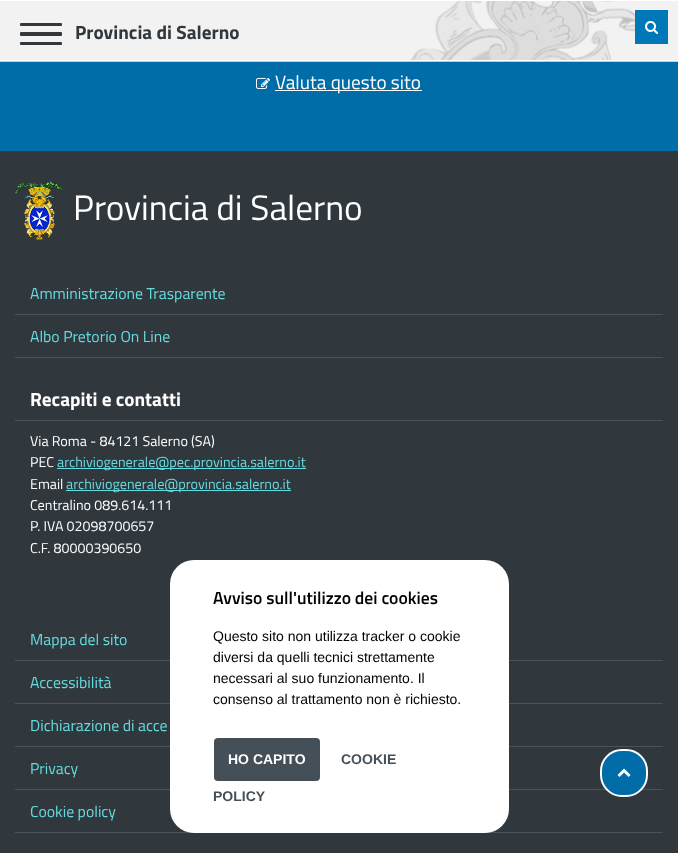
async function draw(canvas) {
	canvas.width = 678;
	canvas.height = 853;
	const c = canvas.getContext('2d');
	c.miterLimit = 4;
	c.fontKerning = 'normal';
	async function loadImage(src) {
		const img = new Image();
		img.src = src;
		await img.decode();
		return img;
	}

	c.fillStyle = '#006da8';
	c.fillRect(0, 0, 678, 853);
	c.fillStyle = '#ccc';
	c.fillRect(0, 61, 678, 1);
	c.fillStyle = '#f2f2f2';
	c.fillRect(0, 1, 678, 59);
	c.fillStyle = '#30373d';
	c.beginPath();
	c.roundRect(20, 23, 42, 3, 1);
	c.fill();
	c.beginPath();
	c.roundRect(20, 32, 42, 4, 1);
	c.fill();
	c.beginPath();
	c.roundRect(20, 42, 42, 3, 1);
	c.fill();
	c.drawImage(await loadImage('img1.png'), 410, 1, 225, 61);
	c.fillStyle = '#fff';
	c.fillRect(0, 0, 678, 1);
	c.fillRect(0, 60, 678, 1);
	c.font = 'bold 19.25px Titillium Web';
	c.fillStyle = '#30373d';
	c.fillText('Provincia di Salerno', 75, 39);
	c.fillStyle = '#0077b7';
	c.fillRect(635, 10, 33, 34);
	c.drawImage(await loadImage('img2.png'), 645, 20, 13, 14);
	c.fillStyle = '#30373d';
	c.fillRect(0, 151, 678, 702);
	c.fillStyle = '#49535c';
	c.fillRect(15, 789, 648, 1);
	c.fillStyle = '#006da8';
	c.beginPath();
	c.roundRect(601, 750, 46, 46, 21);
	c.fill();
	c.strokeStyle = '#fff';
	c.lineWidth = 2;
	c.stroke();
	c.drawImage(await loadImage('img3.png'), 617, 768, 14, 9);
	c.drawImage(await loadImage('img4.png'), 256, 77, 14, 12);
	c.fillStyle = '#fff';
	c.fillRect(275, 90, 147, 1);
	c.font = '19.25px Titillium Web';
	c.fillText('Valuta questo sito', 275, 89);
	c.drawImage(await loadImage('img5.png'), 15, 181, 48, 59);
	c.font = '35.25px Titillium Web';
	c.fillText('Provincia di Salerno', 73, 220);
	c.fillStyle = '#49535c';
	c.fillRect(15, 314, 648, 1);
	c.font = '15.8px Titillium Web';
	c.fillStyle = '#65dde0';
	c.fillText('Amministrazione Trasparente', 30, 299);
	c.fillStyle = '#49535c';
	c.fillRect(15, 357, 648, 1);
	c.fillStyle = '#65dde0';
	c.fillText('Albo Pretorio On Line', 30, 342);
	c.fillStyle = '#49535c';
	c.fillRect(15, 420, 648, 1);
	c.font = 'bold 19.25px Titillium Web';
	c.fillStyle = '#fff';
	c.fillText('Recapiti e contatti', 30, 406);
	c.font = '14.25px Titillium Web';
	c.fillText('Via Roma - 84121 Salerno (SA)', 30, 446);
	c.fillText('PEC', 30, 467);
	c.fillStyle = '#65dde0';
	c.fillRect(57, 468, 249, 1);
	c.fillText('archiviogenerale@pec.provincia.salerno.it', 57, 467);
	c.fillStyle = '#fff';
	c.fillText('Email', 30, 489);
	c.fillStyle = '#65dde0';
	c.fillRect(66, 490, 225, 1);
	c.fillText('archiviogenerale@provincia.salerno.it', 66, 489);
	c.fillStyle = '#fff';
	for (const [text, x, y] of [
		['Centralino 089.614.111', 30, 510],
		['P. IVA 02098700657', 30, 531],
		['C.F. 80000390650', 30, 553],
	]) {
		c.fillText(text, x, y);
	}
	c.fillStyle = '#49535c';
	c.fillRect(15, 660, 648, 1);
	c.font = '15.8px Titillium Web';
	c.fillStyle = '#65dde0';
	c.fillText('Mappa del sito', 30, 645);
	c.fillStyle = '#49535c';
	c.fillRect(15, 703, 648, 1);
	c.fillStyle = '#65dde0';
	c.fillText('Accessibilità', 30, 688);
	c.fillStyle = '#49535c';
	c.fillRect(15, 746, 648, 1);
	c.fillStyle = '#65dde0';
	c.fillText('Dichiarazione di acce', 30, 731);
	c.fillText('Privacy', 30, 774);
	c.fillStyle = '#49535c';
	c.fillRect(15, 832, 648, 1);
	c.fillStyle = '#65dde0';
	c.fillText('Cookie policy', 30, 817);
	c.fillStyle = '#fff';
	c.beginPath();
	c.roundRect(170, 560, 339, 273, 24);
	c.fill();
	c.font = '600 17.6px Titillium Web';
	c.fillStyle = '#000';
	c.fillText('Avviso sull\'utilizzo dei cookies', 213, 604);
	c.font = '14px Liberation Sans';
	for (const [text, x, y] of [
		['Questo sito non utilizza tracker o cookie', 213, 641],
		['diversi da quelli tecnici strettamente', 213, 662],
		['necessari al suo funzionamento. Il', 213, 683],
		['consenso al trattamento non è richiesto.', 213, 704],
	]) {
		c.fillText(text, x, y);
	}
	c.fillStyle = '#444f57';
	c.beginPath();
	c.roundRect(214, 738, 106, 43, 4);
	c.fill();
	c.font = 'bold 14px Liberation Sans';
	c.fillStyle = '#fff';
	c.fillText('HO CAPITO', 228, 764);
	c.fillStyle = '#444f57';
	c.fillText('COOKIE', 341, 764);
	c.fillText('POLICY', 213, 801);
}

draw(document.querySelector('canvas'));
